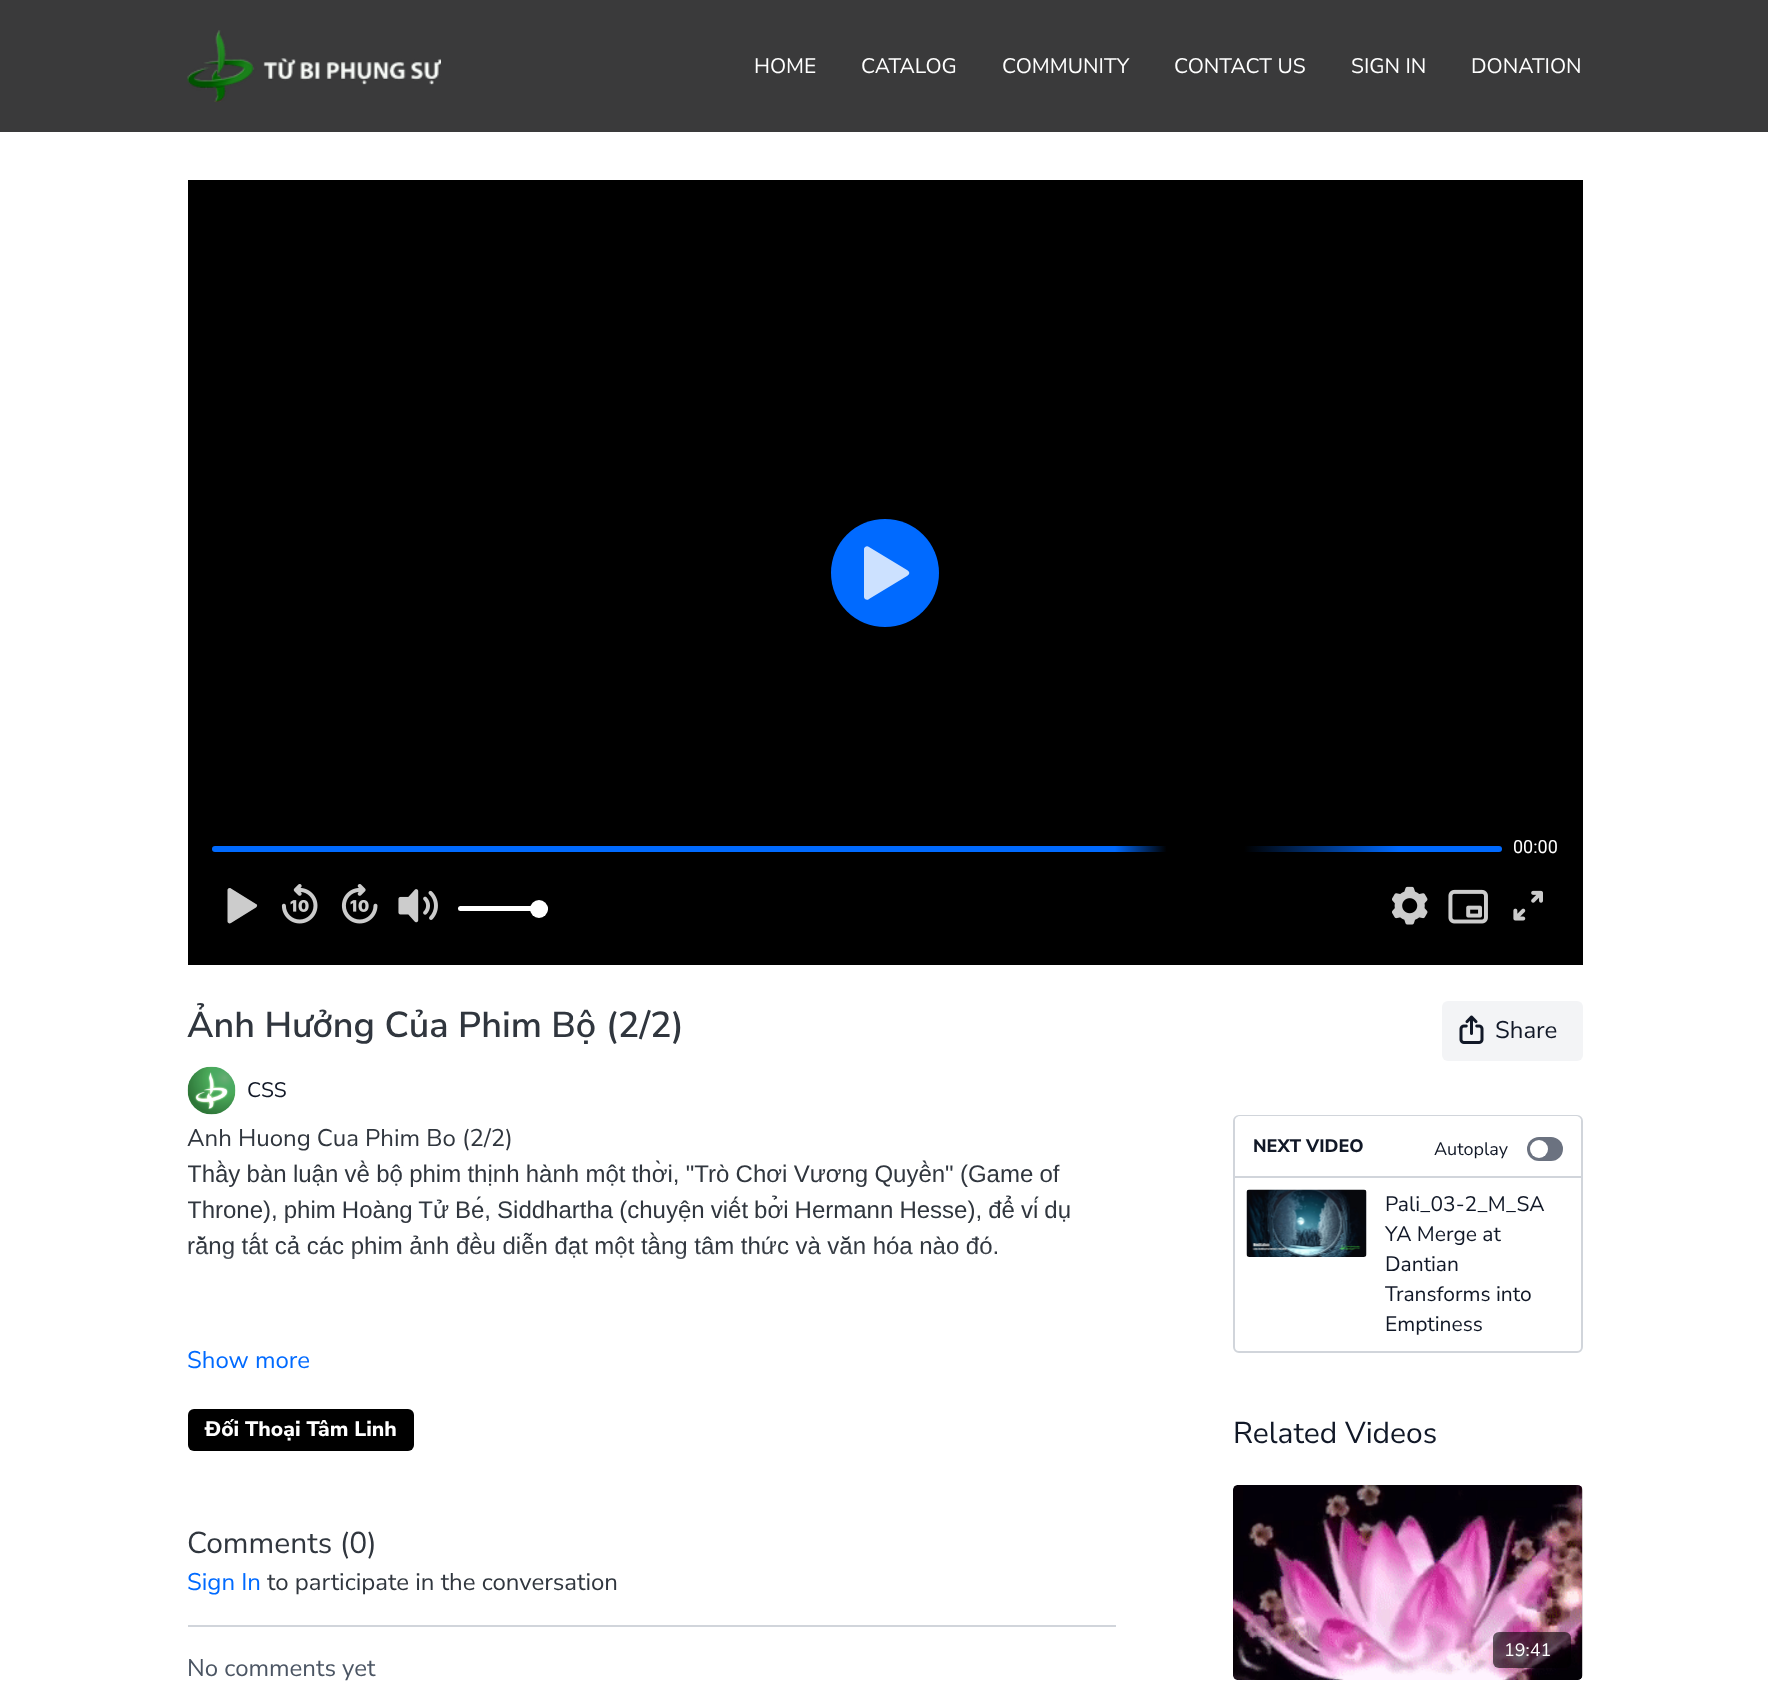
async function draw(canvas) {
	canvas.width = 1768;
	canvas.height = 1691;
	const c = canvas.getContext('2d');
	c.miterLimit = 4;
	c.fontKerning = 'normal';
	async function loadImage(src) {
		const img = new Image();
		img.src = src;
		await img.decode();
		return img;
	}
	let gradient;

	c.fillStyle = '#fff';
	c.fillRect(0, 0, 1768, 1691);
	c.fillStyle = '#3a3a3b';
	c.fillRect(0, 0, 1768, 132);
	c.drawImage(await loadImage('img1.png'), 187, 30, 254, 72);
	c.font = '21px Nunito Sans';
	c.fillStyle = '#fff';
	for (const [text, x, y] of [
		['HOME', 754, 73],
		['CATALOG', 861, 73],
		['COMMUNITY', 1002, 73],
		['CONTACT US', 1174, 73],
		['SIGN IN', 1351, 73],
		['DONATION', 1471, 73],
	]) {
		c.fillText(text, x, y);
	}
	c.fillStyle = '#000';
	c.fillRect(188, 180, 1395, 785);
	c.fillStyle = '#006aff';
	c.beginPath();
	c.arc(885, 573, 54, 0, 2 * Math.PI);
	c.fill();
	c.fillStyle = '#cce1ff';
	c.beginPath();
	c.moveTo(869, 547);
	c.bezierCurveTo(867, 545, 864, 547, 864, 549);
	c.lineTo(864, 597);
	c.bezierCurveTo(864, 599, 867, 601, 869, 599);
	c.lineTo(907, 576);
	c.bezierCurveTo(910, 574, 910, 572, 907, 570);
	c.closePath();
	c.fill();
	gradient = c.createLinearGradient(212, 852, 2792, 852);
	gradient.addColorStop(0.35, '#006aff');
	gradient.addColorStop(0.37, '#000');
	gradient.addColorStop(0.4, '#000');
	gradient.addColorStop(0.46, '#006aff');
	gradient.addColorStop(1, '#006aff');
	c.fillStyle = gradient;
	c.beginPath();
	c.roundRect(212, 846, 1290, 6, 3);
	c.fill();
	c.font = '18px Roboto';
	c.fillStyle = '#fff';
	c.fillText('00:00', 1513, 853);
	c.fillStyle = '#ccc';
	c.beginPath();
	c.moveTo(231, 888.5);
	c.bezierCurveTo(229.5, 887.5, 227.5, 888.5, 227.5, 890);
	c.lineTo(227.5, 921.5);
	c.bezierCurveTo(227.5, 923, 229.5, 924, 231, 923);
	c.lineTo(256, 907.5);
	c.bezierCurveTo(257.5, 906.5, 257.5, 904.5, 256, 904);
	c.closePath();
	c.fill();
	c.drawImage(await loadImage('img2.png'), 281, 884, 37, 40);
	c.drawImage(await loadImage('img3.png'), 341, 884, 37, 40);
	c.drawImage(await loadImage('img4.png'), 398, 889, 40, 34);
	c.fillStyle = '#fff';
	c.beginPath();
	c.roundRect(458, 906, 90, 5, 2.5);
	c.fill();
	c.beginPath();
	c.arc(539, 909, 9, 0, 2 * Math.PI);
	c.fill();
	c.drawImage(await loadImage('img5.png'), 1392, 886, 36, 39);
	c.drawImage(await loadImage('img6.png'), 1448, 889, 40, 35);
	c.drawImage(await loadImage('img7.png'), 1513, 890, 30, 31);
	c.font = '600 36px Nunito Sans';
	c.fillStyle = '#30363e';
	c.fillText('Ảnh Hưởng Của Phim Bộ (2/2)', 187, 1037);
	c.fillStyle = '#f3f4f6';
	c.beginPath();
	c.roundRect(1442, 1001, 141, 60, 6);
	c.fill();
	c.drawImage(await loadImage('img8.png'), 1459, 1015, 25, 29);
	c.font = '24px Nunito Sans';
	c.fillStyle = '#111827';
	c.fillText('Share', 1495, 1038);
	c.drawImage(await loadImage('img9.png'), 187, 1066, 49, 49);
	c.font = '21px Nunito Sans';
	c.fillText('CSS', 247, 1097);
	c.font = '24px Nunito Sans';
	c.fillStyle = '#30363e';
	c.fillText('Anh Huong Cua Phim Bo (2/2)', 187, 1146);
	c.save();
	c.beginPath();
	c.rect(188, 1121, 928, 216);
	c.clip();
	c.wordSpacing = '-0.4px';
	c.font = '24px Liberation Sans';
	c.fillText('Thầy bàn luận về bộ phim thịnh hành một thời, "Trò Chơi Vương Quyền" (Game of', 187, 1182);
	c.wordSpacing = '-0.6px';
	c.fillText('Throne), phim Hoàng Tử Bé, Siddhartha (chuyện viết bởi Hermann Hesse), để ví dụ', 187, 1218);
	c.restore();
	c.wordSpacing = '-0.1px';
	c.font = '24px Liberation Sans';
	c.fillText('rằng tất cả các phim ảnh đều diễn đạt một tầng tâm thức và văn hóa nào đó.', 187, 1254);
	gradient = c.createLinearGradient(652, 1247, 652, 1337);
	gradient.addColorStop(0, '#ffffff00');
	gradient.addColorStop(1, '#fff');
	c.fillStyle = gradient;
	c.fillRect(188, 1249, 808, 10);
	c.wordSpacing = '0px';
	c.font = '24px Nunito Sans';
	c.fillStyle = '#006aff';
	c.fillText('Show more', 187, 1368);
	c.fillStyle = '#000';
	c.beginPath();
	c.roundRect(188, 1409, 226, 42, 6);
	c.fill();
	c.font = '800 21px Nunito Sans';
	c.fillStyle = '#fff';
	c.fillText('Đối Thoại Tâm Linh', 205, 1436);
	c.font = '30px Nunito Sans';
	c.fillStyle = '#30363e';
	c.fillText('Comments (0)', 187, 1553);
	c.font = '24px Nunito Sans';
	c.fillStyle = '#006aff';
	c.fillText('Sign In', 187, 1590);
	c.fillStyle = '#30363e';
	c.fillText('to participate in the conversation', 267, 1590);
	c.fillStyle = '#d1d5db';
	c.fillRect(188, 1625, 928, 2);
	c.fillStyle = '#4b5563';
	c.fillText('No comments yet', 187, 1676);
	c.beginPath();
	c.roundRect(1234, 1116, 348, 236, 5);
	c.strokeStyle = '#d1d5db';
	c.lineWidth = 2;
	c.stroke();
	c.fillStyle = '#fff';
	c.beginPath();
	c.roundRect(1235, 1116, 346, 60, [5, 5, 0, 0]);
	c.fill();
	c.fillStyle = '#d1d5db';
	c.fillRect(1235, 1176, 346, 2);
	c.font = '800 18px Nunito Sans';
	c.fillStyle = '#111827';
	c.fillText('NEXT VIDEO', 1253, 1152);
	c.font = '18px Nunito Sans';
	c.fillText('Autoplay', 1434, 1155);
	c.fillStyle = '#6b7280';
	c.beginPath();
	c.roundRect(1527, 1137, 36, 24, 12);
	c.fill();
	c.fillStyle = '#fff';
	c.beginPath();
	c.arc(1539, 1149, 9, 0, 2 * Math.PI);
	c.fill();
	c.drawImage(await loadImage('img10.png'), 1246, 1189, 121, 68);
	c.font = '21px Nunito Sans';
	c.fillStyle = '#111827';
	for (const [text, x, y] of [
		['Pali_03-2_M_SA', 1385, 1211],
		['YA Merge at', 1385, 1241],
		['Dantian', 1385, 1271],
		['Transforms into', 1385, 1301],
		['Emptiness', 1385, 1331],
	]) {
		c.fillText(text, x, y);
	}
	c.font = '30px Nunito Sans';
	c.fillText('Related Videos', 1233, 1443);
	gradient = c.createLinearGradient(1233, 1583, 1583, 1583);
	gradient.addColorStop(0.08, '#dedede');
	gradient.addColorStop(0.18, '#e0e0e0');
	gradient.addColorStop(0.33, '#e3e3e3');
	c.fillStyle = gradient;
	c.beginPath();
	c.roundRect(1233, 1485, 350, 195, 6);
	c.fill();
	c.drawImage(await loadImage('img11.png'), 1233, 1485, 350, 195);
	c.fillStyle = '#00000099';
	c.beginPath();
	c.roundRect(1493, 1632, 78, 36, 6);
	c.fill();
	c.font = '18px Nunito Sans';
	c.fillStyle = '#fff';
	c.fillText('19:41', 1504, 1656);
}

draw(document.querySelector('canvas'));
